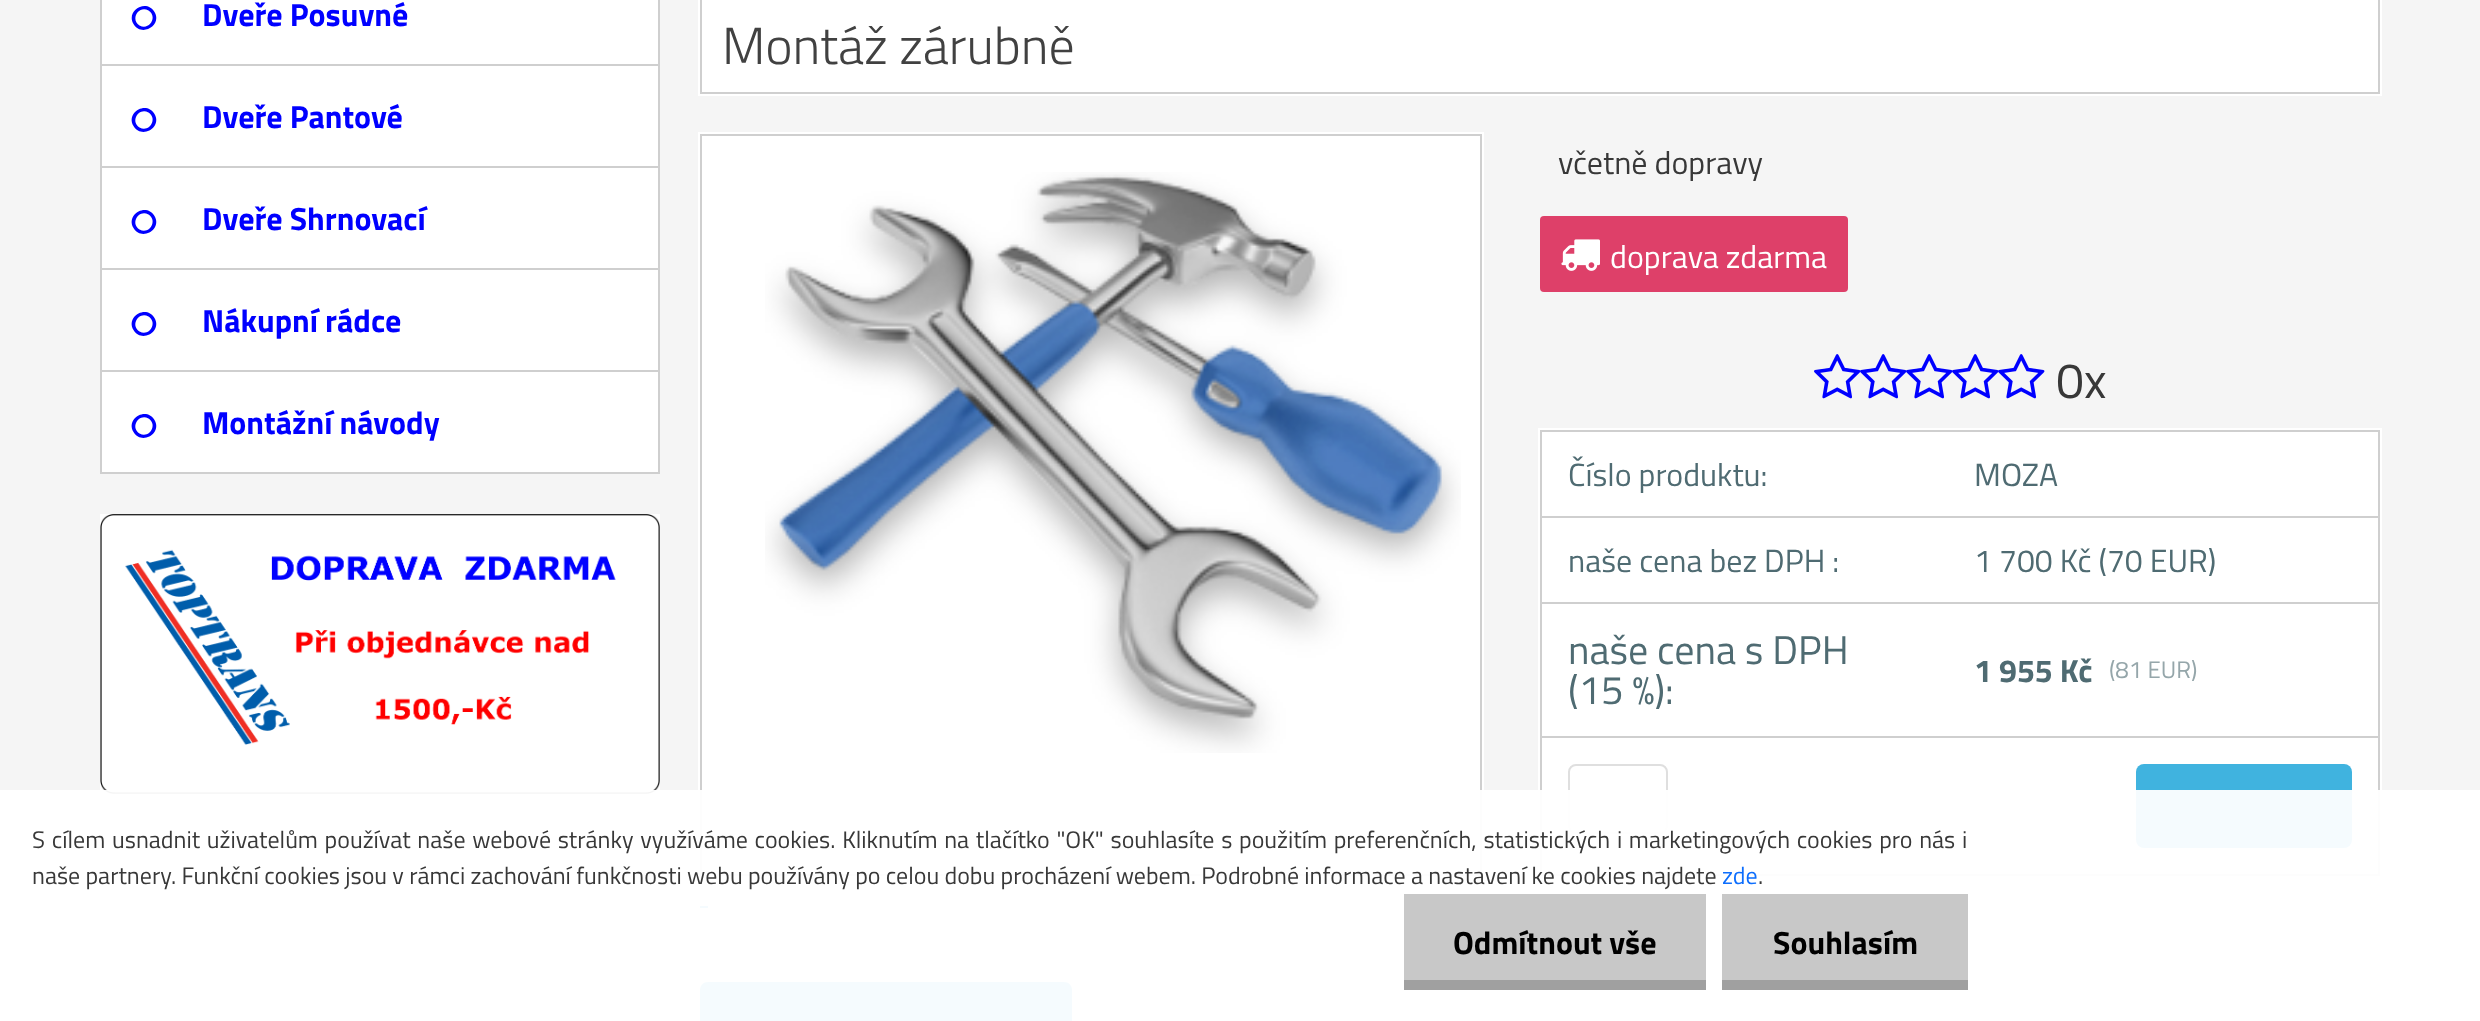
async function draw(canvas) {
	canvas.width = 2480;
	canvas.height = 1021;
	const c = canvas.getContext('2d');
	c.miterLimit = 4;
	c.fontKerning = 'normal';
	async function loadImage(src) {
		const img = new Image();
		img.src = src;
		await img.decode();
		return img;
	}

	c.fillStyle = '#f5f5f5';
	c.fillRect(0, 0, 2480, 1021);
	for (const [x, y, w, h, color] of [
		[102, 0, 556, 64, '#fff'],
		[658, 0, 2, 474, '#cfcfcf'],
		[100, 64, 560, 2, '#cfcfcf'],
		[100, 0, 2, 66, '#cfcfcf'],
	]) {
		c.fillStyle = color;
		c.fillRect(x, y, w, h);
	}
	c.fillStyle = '#00f';
	c.beginPath();
	c.moveTo(148.5, 10.5);
	c.bezierCurveTo(138.5, 5, 130, 19.5, 139.5, 25.5);
	c.bezierCurveTo(149.5, 31, 158, 16.5, 148.5, 10.5);
	c.closePath();
	c.moveTo(154.5, 12);
	c.bezierCurveTo(162.5, 25.5, 141.5, 37.5, 133.5, 24);
	c.bezierCurveTo(125.5, 10.5, 146.5, -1.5, 154.5, 12);
	c.closePath();
	c.fill();
	c.font = 'bold 32px Titillium Web';
	c.fillText('Dveře Posuvné', 202, 26);
	for (const [x, y, w, h, color] of [
		[102, 66, 556, 100, '#fff'],
		[100, 166, 560, 2, '#cfcfcf'],
		[100, 66, 2, 102, '#cfcfcf'],
	]) {
		c.fillStyle = color;
		c.fillRect(x, y, w, h);
	}
	c.fillStyle = '#00f';
	c.beginPath();
	c.moveTo(148.5, 112.5);
	c.bezierCurveTo(138.5, 107, 130, 121.5, 139.5, 127.5);
	c.bezierCurveTo(149.5, 133, 158, 118.5, 148.5, 112.5);
	c.closePath();
	c.moveTo(154.5, 114);
	c.bezierCurveTo(162.5, 127.5, 141.5, 139.5, 133.5, 126);
	c.bezierCurveTo(125.5, 112.5, 146.5, 100.5, 154.5, 114);
	c.closePath();
	c.fill();
	c.fillText('Dveře Pantové', 202, 128);
	for (const [x, y, w, h, color] of [
		[102, 168, 556, 100, '#fff'],
		[100, 268, 560, 2, '#cfcfcf'],
		[100, 168, 2, 102, '#cfcfcf'],
	]) {
		c.fillStyle = color;
		c.fillRect(x, y, w, h);
	}
	c.fillStyle = '#00f';
	c.beginPath();
	c.moveTo(148.5, 214.5);
	c.bezierCurveTo(138.5, 209, 130, 223.5, 139.5, 229.5);
	c.bezierCurveTo(149.5, 235, 158, 220.5, 148.5, 214.5);
	c.closePath();
	c.moveTo(154.5, 216);
	c.bezierCurveTo(162.5, 229.5, 141.5, 241.5, 133.5, 228);
	c.bezierCurveTo(125.5, 214.5, 146.5, 202.5, 154.5, 216);
	c.closePath();
	c.fill();
	c.fillText('Dveře Shrnovací', 202, 230);
	for (const [x, y, w, h, color] of [
		[102, 270, 556, 100, '#fff'],
		[100, 370, 560, 2, '#cfcfcf'],
		[100, 270, 2, 102, '#cfcfcf'],
	]) {
		c.fillStyle = color;
		c.fillRect(x, y, w, h);
	}
	c.fillStyle = '#00f';
	c.beginPath();
	c.moveTo(148.5, 316.5);
	c.bezierCurveTo(138.5, 311, 130, 325.5, 139.5, 331.5);
	c.bezierCurveTo(149.5, 337, 158, 322.5, 148.5, 316.5);
	c.closePath();
	c.moveTo(154.5, 318);
	c.bezierCurveTo(162.5, 331.5, 141.5, 343.5, 133.5, 330);
	c.bezierCurveTo(125.5, 316.5, 146.5, 304.5, 154.5, 318);
	c.closePath();
	c.fill();
	c.fillText('Nákupní rádce', 202, 332);
	for (const [x, y, w, h, color] of [
		[102, 372, 556, 100, '#fff'],
		[100, 472, 560, 2, '#cfcfcf'],
		[100, 372, 2, 102, '#cfcfcf'],
	]) {
		c.fillStyle = color;
		c.fillRect(x, y, w, h);
	}
	c.fillStyle = '#00f';
	c.beginPath();
	c.moveTo(148.5, 418.5);
	c.bezierCurveTo(138.5, 413, 130, 427.5, 139.5, 433.5);
	c.bezierCurveTo(149.5, 439, 158, 424.5, 148.5, 418.5);
	c.closePath();
	c.moveTo(154.5, 420);
	c.bezierCurveTo(162.5, 433.5, 141.5, 445.5, 133.5, 432);
	c.bezierCurveTo(125.5, 418.5, 146.5, 406.5, 154.5, 420);
	c.closePath();
	c.fill();
	c.fillText('Montážní návody', 202, 434);
	c.drawImage(await loadImage('img1.png'), 100, 514, 560, 280);
	c.strokeStyle = '#fff';
	c.lineWidth = 2;
	c.strokeRect(699, -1, 1682, 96);
	c.fillStyle = '#fff';
	c.beginPath();
	c.rect(701, -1, 1678, 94);
	c.fill();
	c.strokeStyle = '#cfcfcf';
	c.stroke();
	c.font = '300 52px Titillium Web';
	c.fillStyle = '#414141';
	c.fillText('Montáž zárubně', 722, 64);
	c.strokeStyle = '#fff';
	c.strokeRect(699, 133, 784, 744);
	c.fillStyle = '#fff';
	c.beginPath();
	c.rect(701, 135, 780, 740);
	c.fill();
	c.strokeStyle = '#cfcfcf';
	c.stroke();
	c.drawImage(await loadImage('img2.png'), 765, 172, 696, 581);
	c.fillStyle = '#40b3df';
	c.fillRect(700, 906, 8, 2);
	c.font = '32px Titillium Web';
	c.fillStyle = '#383838';
	c.fillText('včetně dopravy', 1558, 174);
	c.fillStyle = '#de4069';
	c.beginPath();
	c.roundRect(1540, 216, 308, 76, 4);
	c.fill();
	c.drawImage(await loadImage('img3.png'), 1561, 239, 39, 32);
	c.fillStyle = '#fff';
	c.fillText('doprava zdarma', 1610, 268);
	c.drawImage(await loadImage('img4.png'), 1814, 354, 47, 45);
	c.drawImage(await loadImage('img5.png'), 1860, 354, 47, 45);
	c.drawImage(await loadImage('img5.png'), 1906, 354, 47, 45);
	c.drawImage(await loadImage('img5.png'), 1952, 354, 47, 45);
	c.drawImage(await loadImage('img5.png'), 1998, 354, 47, 45);
	c.font = '50px Titillium Web';
	c.fillStyle = '#383838';
	c.fillText('0x', 2056, 398);
	c.strokeStyle = '#fff';
	c.strokeRect(1539, 429, 842, 448);
	for (const [x, y, w, h, color] of [
		[1542, 432, 836, 442, '#fff'],
		[1540, 430, 840, 2, '#cfcfcf'],
		[2378, 430, 2, 446, '#cfcfcf'],
		[1540, 874, 840, 2, '#cfcfcf'],
		[1540, 430, 2, 446, '#cfcfcf'],
	]) {
		c.fillStyle = color;
		c.fillRect(x, y, w, h);
	}
	c.font = '32px Titillium Web';
	c.fillStyle = '#4f6b72';
	c.fillText('Číslo produktu:', 1568, 486);
	c.fillText('MOZA', 1974, 486);
	c.fillStyle = '#cfcfcf';
	c.fillRect(1540, 516, 840, 2);
	c.fillStyle = '#4f6b72';
	c.fillText('naše cena bez DPH :', 1568, 572);
	c.fillText('1 700 Kč (70 EUR)', 1974, 572);
	c.fillStyle = '#cfcfcf';
	c.fillRect(1540, 602, 840, 2);
	c.font = '40px Titillium Web';
	c.fillStyle = '#4f6b72';
	c.fillText('naše cena s DPH', 1568, 664);
	c.fillText('(15 %):', 1568, 704);
	c.font = 'bold 32px Titillium Web';
	c.fillText('1 955 Kč', 1974, 682);
	c.font = '24px Titillium Web';
	c.fillStyle = '#95a6aa';
	c.fillText('(81 EUR)', 2109, 678);
	c.fillStyle = '#cfcfcf';
	c.fillRect(1540, 736, 840, 2);
	c.beginPath();
	c.roundRect(1569, 765, 98, 68, 7);
	c.strokeStyle = '#dfdfdf';
	c.stroke();
	c.fillStyle = '#40b3df';
	c.beginPath();
	c.roundRect(2136, 764, 216, 84, 8);
	c.fill();
	c.beginPath();
	c.moveTo(708, 982);
	c.lineTo(1064, 982);
	c.bezierCurveTo(1068.5, 982, 1072, 985.5, 1072, 990);
	c.lineTo(1072, 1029);
	c.lineTo(700, 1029);
	c.lineTo(700, 990);
	c.bezierCurveTo(700, 985.5, 703.5, 982, 708, 982);
	c.closePath();
	c.fill();
	c.fillStyle = '#fffffff2';
	c.fillRect(0, 790, 2480, 231);
	c.wordSpacing = '1.4px';
	c.fillStyle = '#383838';
	c.fillText('S cílem usnadnit uživatelům používat naše webové stránky využíváme cookies. Kliknutím na tlačítko "OK" souhlasíte s použitím preferenčních, statistických i marketingových cookies pro nás i', 32, 848);
	c.wordSpacing = '0px';
	c.fillText('naše partnery. Funkční cookies jsou v rámci zachování funkčnosti webu používány po celou dobu procházení webem. Podrobné informace a nastavení ke cookies najdete', 32, 884);
	c.fillStyle = '#0d6efd';
	c.fillText('zde', 1722, 884);
	c.fillStyle = '#383838';
	c.fillText('.', 1758, 884);
	c.fillStyle = '#c8c8c8';
	c.fillRect(1404, 894, 302, 86);
	c.fillStyle = '#a0a0a0';
	c.fillRect(1404, 980, 302, 10);
	c.font = 'bold 32px Titillium Web';
	c.fillStyle = '#000';
	c.fillText('Odmítnout vše', 1453, 954);
	c.fillStyle = '#c8c8c8';
	c.fillRect(1722, 894, 246, 86);
	c.fillStyle = '#a0a0a0';
	c.fillRect(1722, 980, 246, 10);
	c.fillStyle = '#000';
	c.fillText('Souhlasím', 1773, 954);
}

draw(document.querySelector('canvas'));
